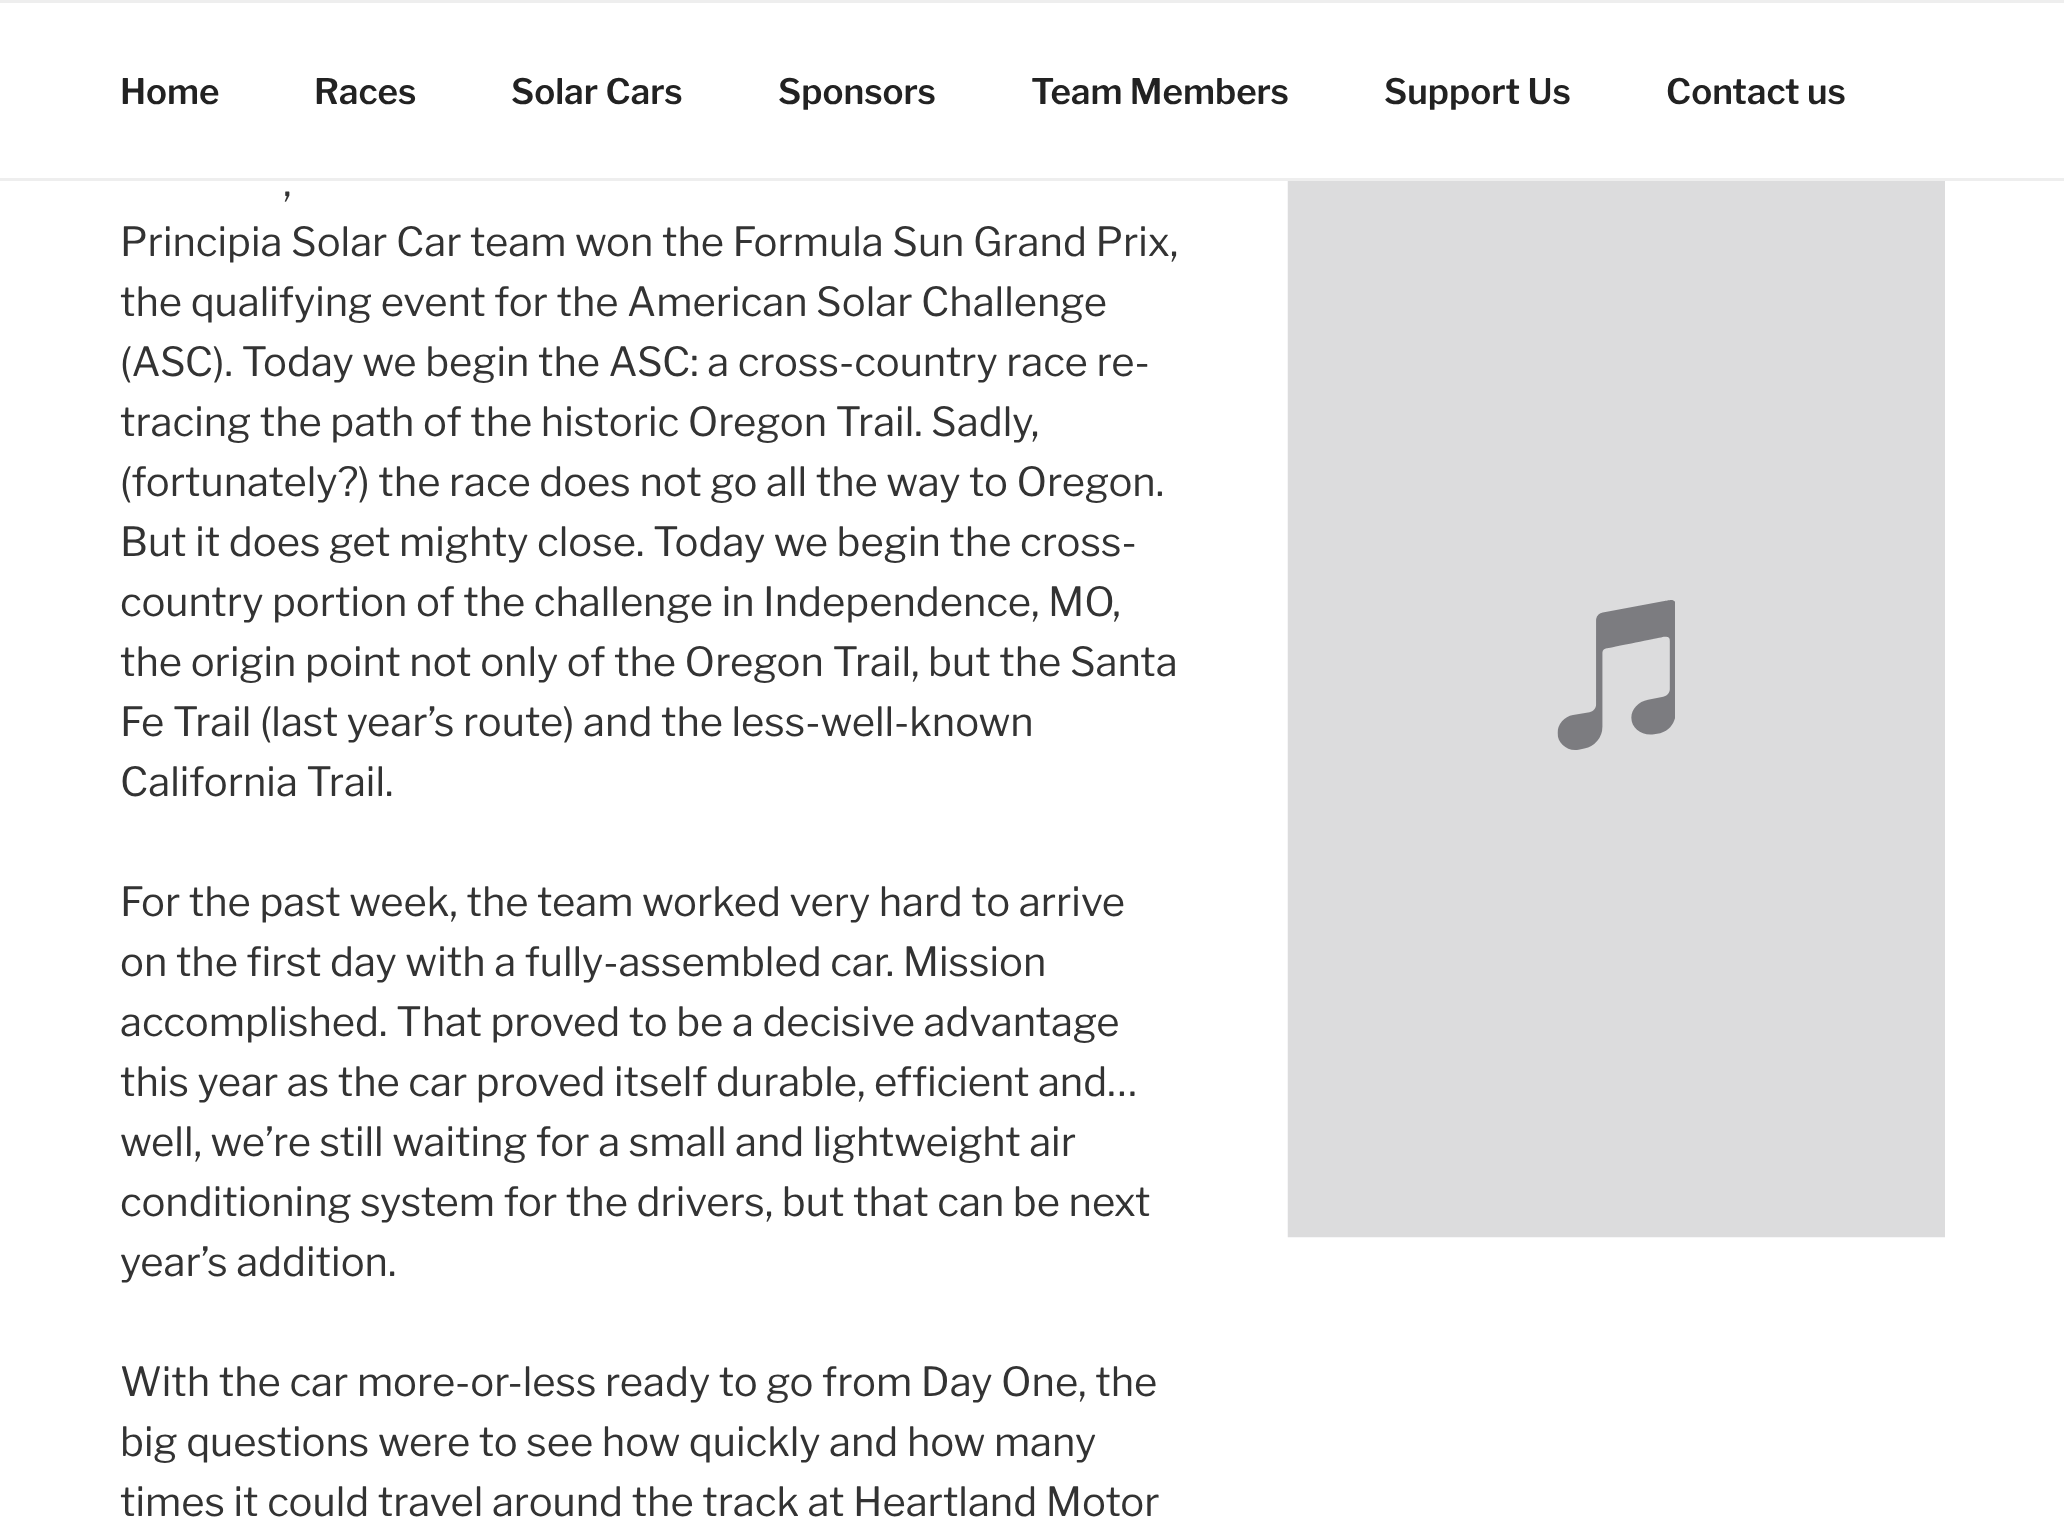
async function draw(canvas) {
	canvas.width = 2064;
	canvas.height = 1519;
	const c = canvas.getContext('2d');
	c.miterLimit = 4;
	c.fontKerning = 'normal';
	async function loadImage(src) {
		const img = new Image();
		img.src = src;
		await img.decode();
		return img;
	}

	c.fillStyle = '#fff';
	c.fillRect(0, 0, 2064, 1519);
	c.fillStyle = '#eee';
	c.fillRect(0, 0, 2064, 3);
	c.fillRect(0, 178, 2064, 3);
	c.font = '100 35px "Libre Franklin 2"';
	c.fillStyle = '#222';
	for (const [text, x, y] of [
		['Home', 120, 104],
		['Races', 314, 104],
		['Solar Cars', 511, 104],
		['Sponsors', 778, 104],
		['Team Members', 1031, 104],
		['Support Us', 1384, 104],
		['Contact us', 1666, 104],
	]) {
		c.fillText(text, x, y);
	}
	c.font = '100 40px Libre Franklin';
	c.fillStyle = '#333';
	for (const [text, x, y] of [
		[',', 283, 196],
		['Principia Solar Car team won the Formula Sun Grand Prix,', 120, 256],
		['the qualifying event for the American Solar Challenge', 120, 316],
		['(ASC). Today we begin the ASC: a cross-country race re-', 120, 376],
		['tracing the path of the historic Oregon Trail. Sadly,', 120, 436],
		['(fortunately?) the race does not go all the way to Oregon.', 120, 496],
		['But it does get mighty close. Today we begin the cross-', 120, 556],
		['country portion of the challenge in Independence, MO,', 120, 616],
		['the origin point not only of the Oregon Trail, but the Santa', 120, 676],
		['Fe Trail (last year’s route) and the less-well-known', 120, 736],
		['California Trail.', 120, 796],
		['For the past week, the team worked very hard to arrive', 120, 916],
		['on the first day with a fully-assembled car. Mission', 120, 976],
		['accomplished. That proved to be a decisive advantage', 120, 1036],
		['this year as the car proved itself durable, efficient and…', 120, 1096],
		['well, we’re still waiting for a small and lightweight air', 120, 1156],
		['conditioning system for the drivers, but that can be next', 120, 1216],
		['year’s addition.', 120, 1276],
		['With the car more-or-less ready to go from Day One, the', 120, 1396],
		['big questions were to see how quickly and how many', 120, 1456],
		['times it could travel around the track at Heartland Motor', 120, 1516],
	]) {
		c.fillText(text, x, y);
	}
	c.drawImage(await loadImage('img1.png'), 1287, 181, 658, 1057);
}

draw(document.querySelector('canvas'));
